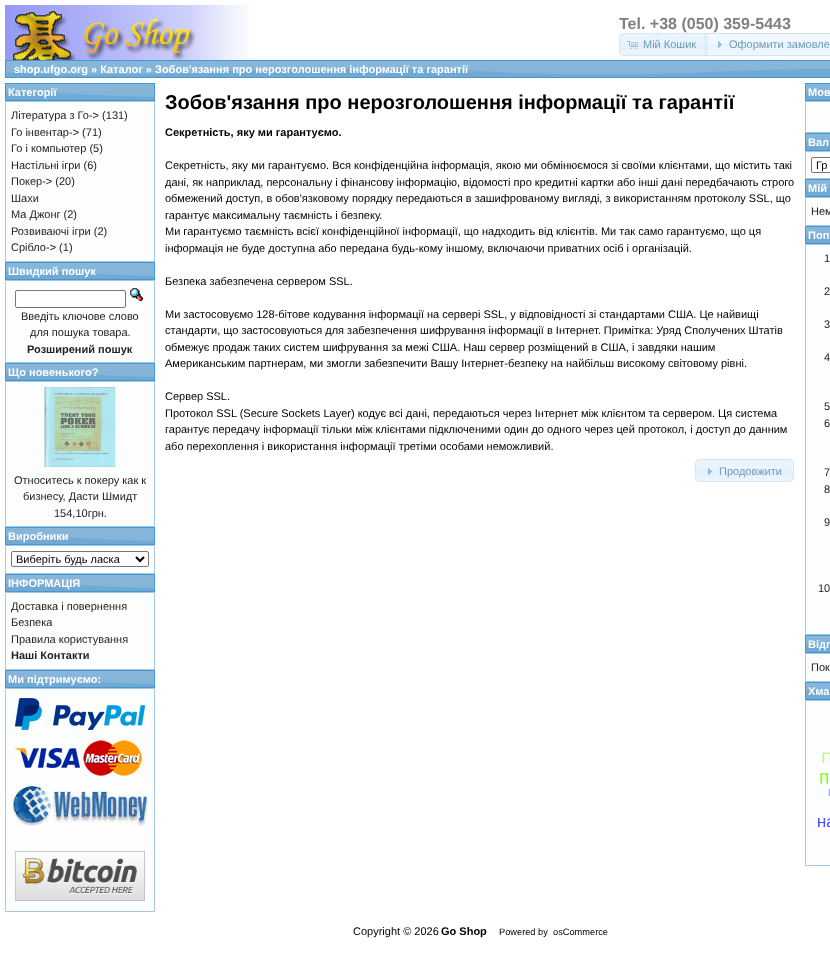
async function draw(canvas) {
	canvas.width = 830;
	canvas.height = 970;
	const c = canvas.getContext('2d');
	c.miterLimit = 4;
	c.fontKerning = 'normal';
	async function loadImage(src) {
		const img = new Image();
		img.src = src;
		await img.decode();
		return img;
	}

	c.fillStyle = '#fff';
	c.fillRect(0, 0, 830, 970);
	c.drawImage(await loadImage('img1.png'), 5, 5, 244, 55);
	c.font = 'bold 16px Liberation Sans';
	c.fillStyle = '#808080';
	c.fillText('Tel. +38 (050) 359-5443', 619, 29);
	c.fillStyle = '#e9f4fd';
	c.beginPath();
	c.roundRect(619, 33, 89, 23, [5, 0, 0, 5]);
	c.fill();
	c.fillStyle = '#e3f1fc';
	c.fillRect(619, 44, 89, 6);
	c.beginPath();
	c.roundRect(619.5, 33.5, 88, 22, [4.5, 0, 0, 4.5]);
	c.strokeStyle = '#d6e6f2';
	c.stroke();
	c.drawImage(await loadImage('img2.png'), 627, 41, 11, 8);
	c.font = '11px Liberation Sans';
	c.fillStyle = '#6d9abb';
	c.fillText('Мій Кошик', 643, 48);
	c.drawImage(await loadImage('img3.png'), 705, 33, 125, 23);
	c.strokeStyle = '#c5dbecb3';
	c.strokeRect(705.5, 33.5, 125, 22);
	c.drawImage(await loadImage('img4.png'), 718, 41, 4, 7);
	c.fillText('Оформити замовле', 729, 48);
	c.drawImage(await loadImage('img5.png'), 6, 61, 824, 16);
	c.strokeStyle = '#4297d7';
	c.strokeRect(5.5, 60.5, 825, 17);
	c.font = 'bold 11px Liberation Sans';
	c.fillStyle = '#fff';
	c.fillText('shop.ufgo.org » Каталог » Зобов\'язання про нерозголошення інформації та гарантії', 14, 73);
	c.drawImage(await loadImage('img6.png'), 6, 84, 148, 16);
	c.strokeRect(5.5, 83.5, 149, 17);
	c.fillText('Категорії', 8, 96);
	c.fillStyle = '#fcfdfd';
	c.beginPath();
	c.rect(5.5, 101.5, 149, 160);
	c.fill();
	c.strokeStyle = '#a6c9e2';
	c.stroke();
	c.font = '11px Liberation Sans';
	c.fillStyle = '#222';
	for (const [text, x, y] of [
		['Література з Го-> (131)', 11, 119],
		['Го інвентар-> (71)', 11, 136],
		['Го і компьютер (5)', 11, 152],
		['Настільні ігри (6)', 11, 169],
		['Покер-> (20)', 11, 185],
		['Шахи', 11, 202],
		['Ма Джонг (2)', 11, 218],
		['Розвиваючі ігри (2)', 11, 235],
		['Срібло-> (1)', 11, 251],
	]) {
		c.fillText(text, x, y);
	}
	c.drawImage(await loadImage('img6.png'), 6, 263, 148, 16);
	c.strokeStyle = '#4297d7';
	c.strokeRect(5.5, 262.5, 149, 17);
	c.font = 'bold 11px Liberation Sans';
	c.fillStyle = '#fff';
	c.fillText('Швидкий пошук', 8, 275);
	c.fillStyle = '#fcfdfd';
	c.beginPath();
	c.rect(5.5, 280.5, 149, 82);
	c.fill();
	c.strokeStyle = '#a6c9e2';
	c.stroke();
	c.fillStyle = '#fff';
	c.beginPath();
	c.roundRect(15.5, 290.5, 110, 17, 1.5);
	c.fill();
	c.strokeStyle = '#767676';
	c.stroke();
	c.drawImage(await loadImage('img7.png'), 130, 288, 13, 13);
	c.font = '11px Liberation Sans';
	c.fillStyle = '#222';
	c.fillText('Введіть ключове слово', 21, 320);
	c.fillText('для пошука товара.', 30, 336);
	c.font = 'bold 11px Liberation Sans';
	c.fillText('Розширений пошук', 27, 353);
	c.drawImage(await loadImage('img6.png'), 6, 364, 148, 16);
	c.strokeStyle = '#4297d7';
	c.strokeRect(5.5, 363.5, 149, 17);
	c.fillStyle = '#fff';
	c.fillText('Що новенького?', 8, 376);
	c.fillStyle = '#fcfdfd';
	c.beginPath();
	c.rect(5.5, 381.5, 149, 145);
	c.fill();
	c.strokeStyle = '#a6c9e2';
	c.stroke();
	c.drawImage(await loadImage('img8.png'), 44, 387, 72, 80);
	c.font = '11px Liberation Sans';
	c.fillStyle = '#222';
	for (const [text, x, y] of [
		['Относитесь к покеру как к', 14, 484],
		['бизнесу, Дасти Шмидт', 23, 500],
		['154,10грн.', 54, 517],
	]) {
		c.fillText(text, x, y);
	}
	c.drawImage(await loadImage('img6.png'), 6, 528, 148, 16);
	c.strokeStyle = '#4297d7';
	c.strokeRect(5.5, 527.5, 149, 17);
	c.font = 'bold 11px Liberation Sans';
	c.fillStyle = '#fff';
	c.fillText('Виробники', 8, 540);
	c.fillStyle = '#fcfdfd';
	c.beginPath();
	c.rect(5.5, 545.5, 149, 28);
	c.fill();
	c.strokeStyle = '#a6c9e2';
	c.stroke();
	c.fillStyle = '#fff';
	c.beginPath();
	c.roundRect(11.5, 551.5, 137, 15, 1.5);
	c.fill();
	c.strokeStyle = '#767676';
	c.stroke();
	c.beginPath();
	c.moveTo(136, 557);
	c.lineTo(140, 561);
	c.lineTo(144, 557);
	c.strokeStyle = '#000';
	c.lineWidth = 2;
	c.stroke();
	c.font = '11px Liberation Sans';
	c.fillStyle = '#000';
	c.fillText('Виберіть будь ласка', 16, 563);
	c.drawImage(await loadImage('img6.png'), 6, 575, 148, 16);
	c.strokeStyle = '#4297d7';
	c.lineWidth = 1;
	c.strokeRect(5.5, 574.5, 149, 17);
	c.font = 'bold 11px Liberation Sans';
	c.fillStyle = '#fff';
	c.fillText('ІНФОРМАЦІЯ', 8, 587);
	c.fillStyle = '#fcfdfd';
	c.beginPath();
	c.rect(5.5, 592.5, 149, 77);
	c.fill();
	c.strokeStyle = '#a6c9e2';
	c.stroke();
	c.font = '11px Liberation Sans';
	c.fillStyle = '#222';
	for (const [text, x, y] of [
		['Доставка і повернення', 11, 610],
		['Безпека', 11, 626],
		['Правила користування', 11, 643],
	]) {
		c.fillText(text, x, y);
	}
	c.font = 'bold 11px Liberation Sans';
	c.fillText('Наші Контакти', 11, 659);
	c.drawImage(await loadImage('img6.png'), 6, 671, 148, 16);
	c.strokeStyle = '#4297d7';
	c.strokeRect(5.5, 670.5, 149, 17);
	c.fillStyle = '#fff';
	c.fillText('Ми підтримуємо:', 8, 683);
	c.fillStyle = '#fcfdfd';
	c.beginPath();
	c.rect(5.5, 688.5, 149, 223);
	c.fill();
	c.strokeStyle = '#a6c9e2';
	c.stroke();
	c.drawImage(await loadImage('img9.png'), 15, 698, 130, 32);
	c.drawImage(await loadImage('img10.png'), 15, 748, 65, 20);
	c.drawImage(await loadImage('img11.png'), 83, 740, 59, 36);
	c.drawImage(await loadImage('img12.png'), 12, 783, 136, 48);
	c.drawImage(await loadImage('img13.png'), 15, 851, 130, 50);
	c.font = 'bold 20px Liberation Sans';
	c.fillStyle = '#000';
	c.fillText('Зобов\'язання про нерозголошення інформації та гарантії', 165, 109);
	c.font = 'bold 11px Liberation Sans';
	c.fillText('Секретність, яку ми гарантуємо.', 165, 136);
	c.font = '11px Liberation Sans';
	for (const [text, x, y] of [
		['Секретність, яку ми гарантуємо. Вся конфіденційна інформація, якою ми обмінюємося зі своїми клієнтами, що містить такі', 165, 169],
		['дані, як наприклад, персональну і фінансову інформацію, відомості про кредитні картки або інші дані передбачають строго', 165, 186],
		['обмежений доступ, в обов\'язковому порядку передаються в зашифрованому вигляді, з використанням протоколу SSL, що', 165, 202],
		['гарантує максимальну таємність і безпеку.', 165, 219],
		['Ми гарантуємо таємність всієї конфіденційної інформації, що надходить від клієнтів. Ми так само гарантуємо, що ця', 165, 235],
		['інформація не буде доступна або передана будь-кому іншому, включаючи приватних осіб і організацій.', 165, 252],
		['Безпека забезпечена сервером SSL.', 165, 285],
		['Ми застосовуємо 128-бітове кодування інформації на сервері SSL, у відповідності зі стандартами США. Це найвищі', 165, 318],
		['стандарти, що застосовуються для забезпечення шифрування інформації в Інтернет. Примітка: Уряд Сполучених Штатів', 165, 334],
		['обмежує продаж таких систем шифрування за межі США. Наш сервер розміщений в США, і завдяки нашим', 165, 351],
		['Американським партнерам, ми змогли забезпечити Вашу Інтернет-безпеку на найбільш високому світовому рівні.', 165, 367],
		['Сервер SSL.', 165, 400],
		['Протокол SSL (Secure Sockets Layer) кодує всі дані, передаються через Інтернет між клієнтом та сервером. Ця система', 165, 417],
		['гарантує передачу інформації тільки між клієнтами підключеними один до одного через цей протокол, і доступ до данним', 165, 433],
		['або перехоплення і використання інформації третіми особами неможливий.', 165, 450],
	]) {
		c.fillText(text, x, y);
	}
	c.fillStyle = '#e9f4fd';
	c.beginPath();
	c.roundRect(695, 459, 99, 23, 5);
	c.fill();
	c.drawImage(await loadImage('img14.png'), 695, 470, 99, 11);
	c.beginPath();
	c.roundRect(695.5, 459.5, 98, 22, 4.5);
	c.strokeStyle = '#d6e6f2';
	c.stroke();
	c.drawImage(await loadImage('img15.png'), 708, 468, 4, 7);
	c.fillStyle = '#6d9abb';
	c.fillText('Продовжити', 719, 475);
	c.drawImage(await loadImage('img16.png'), 806, 84, 24, 16);
	c.strokeStyle = '#4297d7';
	c.strokeRect(805.5, 83.5, 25, 17);
	c.font = 'bold 11px Liberation Sans';
	c.fillStyle = '#fff';
	c.fillText('Мов', 808, 96);
	c.fillStyle = '#fcfdfd';
	c.beginPath();
	c.rect(805.5, 101.5, 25, 31);
	c.fill();
	c.strokeStyle = '#a6c9e2';
	c.stroke();
	c.drawImage(await loadImage('img16.png'), 806, 134, 24, 16);
	c.strokeStyle = '#4297d7';
	c.strokeRect(805.5, 133.5, 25, 17);
	c.fillStyle = '#fff';
	c.fillText('Вал', 808, 146);
	c.fillStyle = '#fcfdfd';
	c.beginPath();
	c.rect(805.5, 151.5, 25, 27);
	c.fill();
	c.strokeStyle = '#a6c9e2';
	c.stroke();
	c.fillStyle = '#fff';
	c.beginPath();
	c.roundRect(811.5, 157.5, 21, 15, 1.5);
	c.fill();
	c.strokeStyle = '#767676';
	c.stroke();
	c.font = '11px Liberation Sans';
	c.fillStyle = '#000';
	c.fillText('Гр', 816, 169);
	c.drawImage(await loadImage('img16.png'), 806, 180, 24, 16);
	c.strokeStyle = '#4297d7';
	c.strokeRect(805.5, 179.5, 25, 17);
	c.font = 'bold 11px Liberation Sans';
	c.fillStyle = '#fff';
	c.fillText('Мій', 808, 192);
	c.fillStyle = '#fcfdfd';
	c.beginPath();
	c.rect(805.5, 197.5, 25, 28);
	c.fill();
	c.strokeStyle = '#a6c9e2';
	c.stroke();
	c.font = '11px Liberation Sans';
	c.fillStyle = '#222';
	c.fillText('Нем', 811, 215);
	c.drawImage(await loadImage('img16.png'), 806, 227, 24, 16);
	c.strokeStyle = '#4297d7';
	c.strokeRect(805.5, 226.5, 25, 17);
	c.font = 'bold 11px Liberation Sans';
	c.fillStyle = '#fff';
	c.fillText('Поп', 808, 239);
	c.fillStyle = '#fcfdfd';
	c.beginPath();
	c.rect(805.5, 244.5, 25, 390);
	c.fill();
	c.strokeStyle = '#a6c9e2';
	c.stroke();
	c.font = '11px Liberation Sans';
	c.fillStyle = '#222';
	for (const [text, x, y] of [
		['1', 824, 262],
		['2', 824, 295],
		['3', 824, 328],
		['4', 824, 361],
		['5', 824, 410],
		['6', 824, 427],
		['7', 824, 476],
		['8', 824, 493],
		['9', 824, 526],
		['10', 818, 592],
	]) {
		c.fillText(text, x, y);
	}
	c.drawImage(await loadImage('img16.png'), 806, 636, 24, 16);
	c.strokeStyle = '#4297d7';
	c.strokeRect(805.5, 635.5, 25, 17);
	c.font = 'bold 11px Liberation Sans';
	c.fillStyle = '#fff';
	c.fillText('Відг', 808, 648);
	c.fillStyle = '#fcfdfd';
	c.beginPath();
	c.rect(805.5, 653.5, 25, 28);
	c.fill();
	c.strokeStyle = '#a6c9e2';
	c.stroke();
	c.font = '11px Liberation Sans';
	c.fillStyle = '#222';
	c.fillText('Пок', 811, 671);
	c.drawImage(await loadImage('img16.png'), 806, 683, 24, 16);
	c.strokeStyle = '#4297d7';
	c.strokeRect(805.5, 682.5, 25, 17);
	c.font = 'bold 11px Liberation Sans';
	c.fillStyle = '#fff';
	c.fillText('Хма', 808, 695);
	c.fillStyle = '#fcfdfd';
	c.beginPath();
	c.rect(805.5, 700.5, 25, 165);
	c.fill();
	c.strokeStyle = '#a6c9e2';
	c.stroke();
	c.drawImage(await loadImage('img17.png'), 818, 752, 12, 75);
	c.font = '11px Liberation Sans';
	c.fillStyle = '#000';
	c.fillText('Copyright © 2026', 353, 935);
	c.font = 'bold 11px Liberation Sans';
	c.fillText('Go Shop', 441, 935);
	c.font = '9.25px Liberation Sans';
	c.fillText('Powered by', 499, 935);
	c.fillText('osCommerce', 553, 935);
}

draw(document.querySelector('canvas'));
